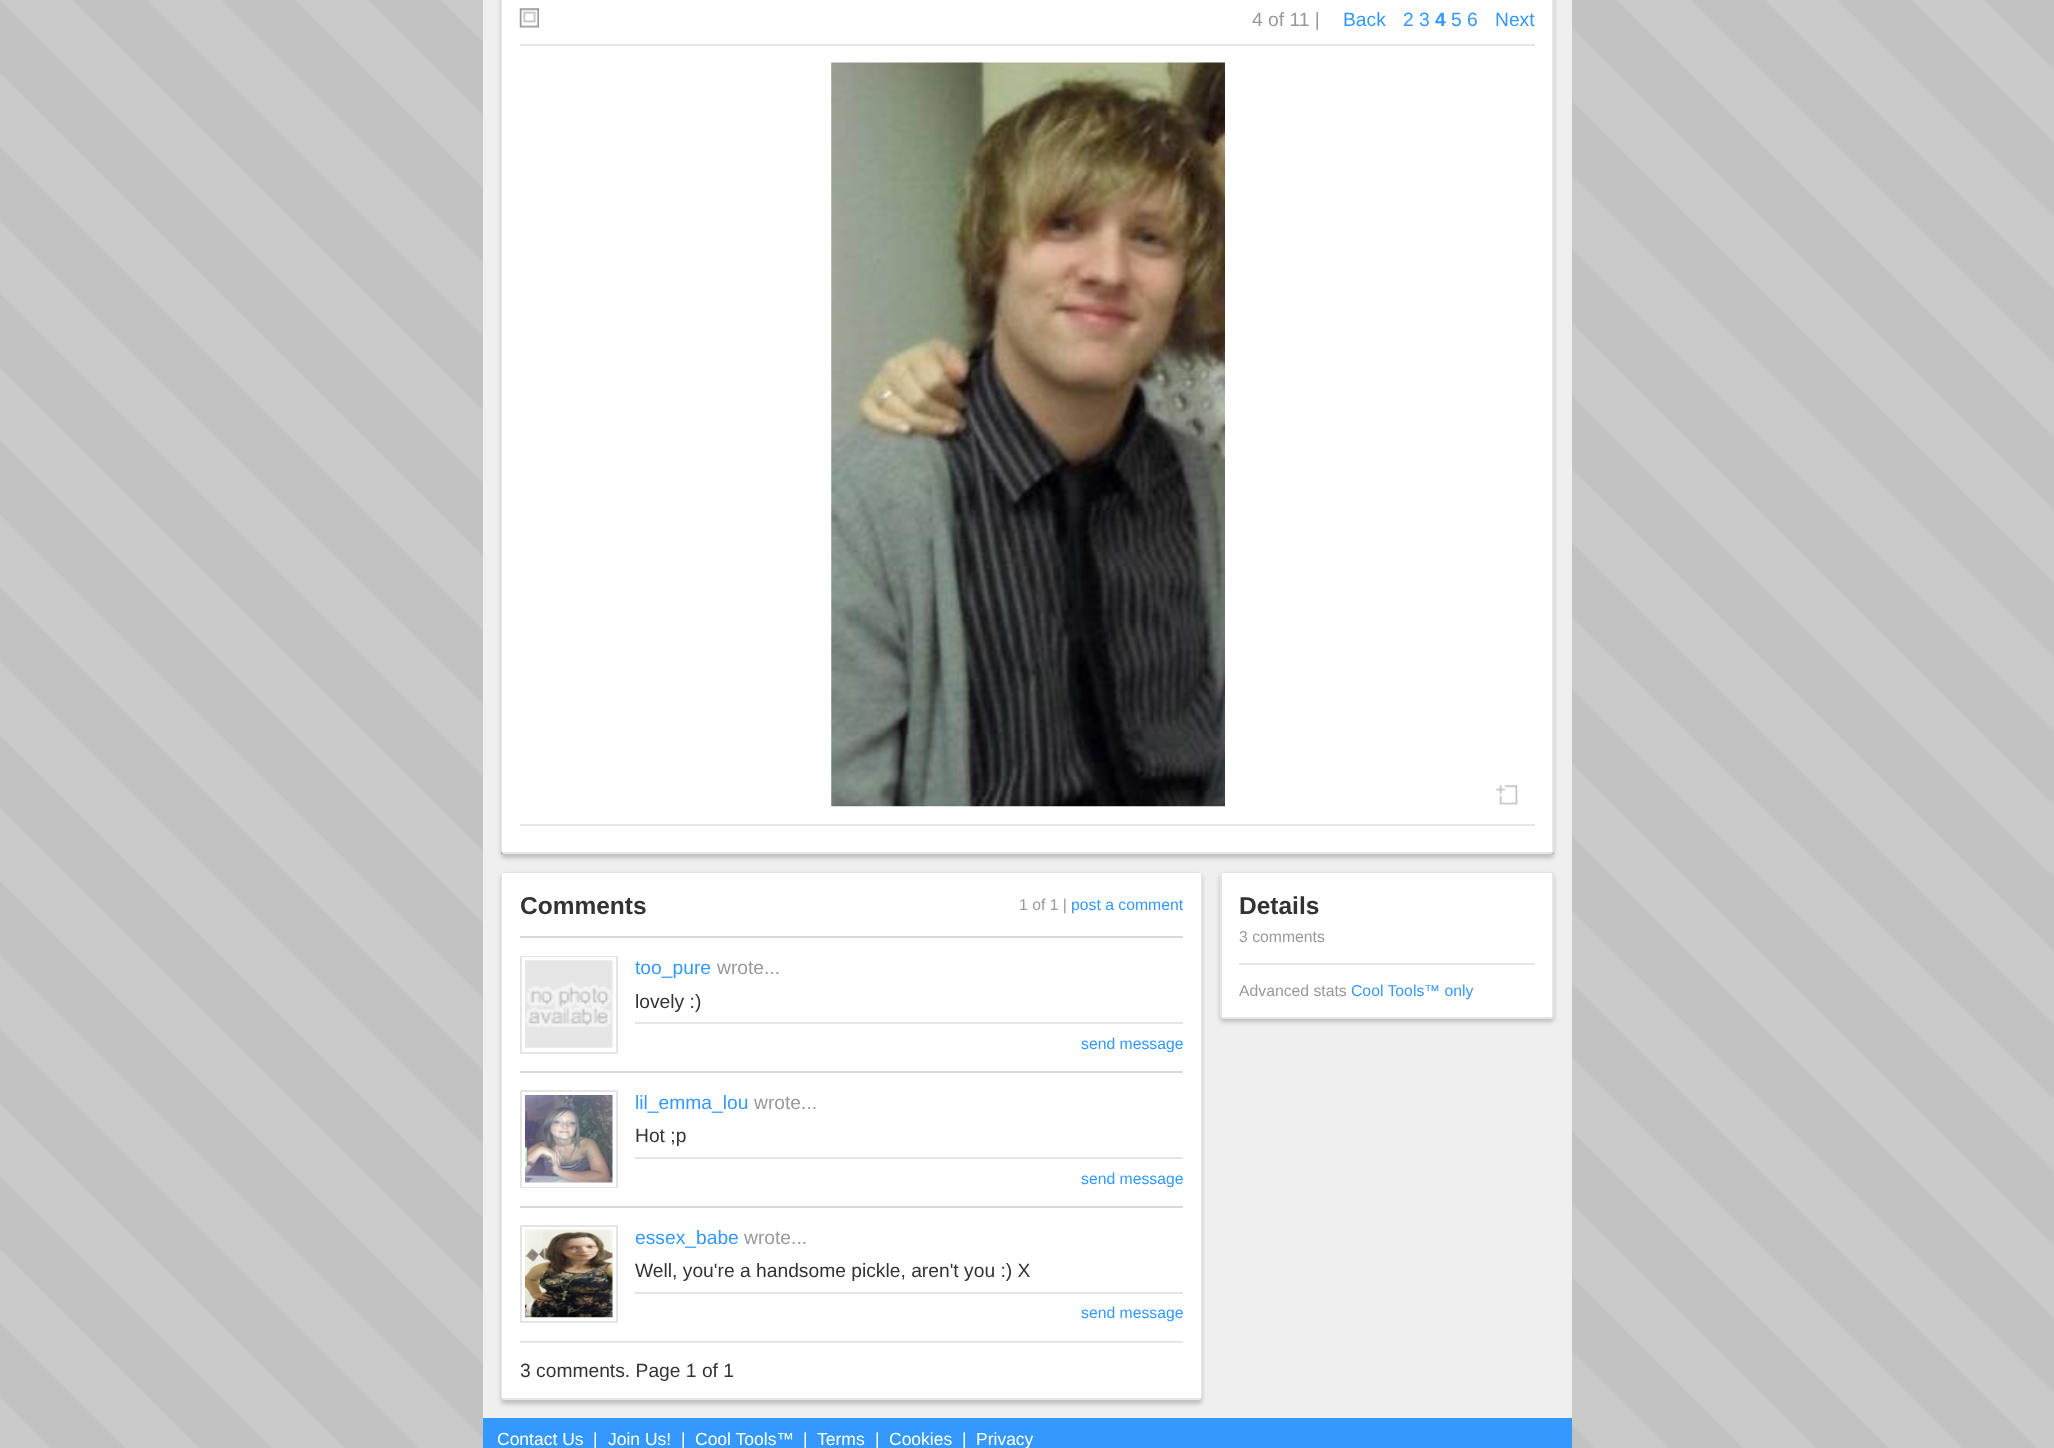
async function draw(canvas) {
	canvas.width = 2054;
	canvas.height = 1448;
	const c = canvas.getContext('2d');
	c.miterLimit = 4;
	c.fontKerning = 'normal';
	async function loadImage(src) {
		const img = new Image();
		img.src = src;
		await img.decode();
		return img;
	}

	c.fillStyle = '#fff';
	c.fillRect(0, 0, 2054, 1448);
	c.drawImage(await loadImage('img1.png'), 0, 0, 2054, 1448);
	for (const [x, y, w, h, color] of [
		[483, 0, 18, 854, '#efefef'],
		[1554, 0, 18, 854, '#efefef'],
		[483, 854, 1089, 18, '#efefef'],
	]) {
		c.fillStyle = color;
		c.fillRect(x, y, w, h);
	}
	c.fillStyle = '#00000033';
	c.filter = 'blur(2px)';
	c.beginPath();
	c.roundRect(501, -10, 1053, 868, 4);
	c.fill();
	c.filter = 'none';
	c.beginPath();
	c.roundRect(502, -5, 1051, 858, 3);
	c.strokeStyle = '#e5e5e5';
	c.lineWidth = 2;
	c.stroke();
	c.fillStyle = '#fff';
	c.fillRect(502, 0, 1050, 852);
	c.drawImage(await loadImage('img2.png'), 519, 8, 20, 20);
	c.font = '19.25px Liberation Sans';
	c.fillStyle = '#999';
	c.fillText('4 of 11 |', 1252, 26);
	c.fillStyle = '#39f';
	c.fillText('Back', 1343, 26);
	c.fillText('2 3', 1403, 26);
	c.font = 'bold 19.25px Liberation Sans';
	c.fillText('4', 1435, 26);
	c.font = '19.25px Liberation Sans';
	c.fillText('5 6', 1451, 26);
	c.fillText('Next', 1495, 26);
	c.fillStyle = '#e6e6e6';
	c.fillRect(520, 44, 1015, 2);
	c.drawImage(await loadImage('img3.png'), 831, 62, 394, 745);
	c.drawImage(await loadImage('img4.png'), 1496, 785, 22, 20);
	c.fillRect(520, 824, 1015, 2);
	c.fillStyle = '#efefef';
	c.fillRect(483, 872, 1089, 546);
	c.fillStyle = '#00000033';
	c.filter = 'blur(2px)';
	c.beginPath();
	c.roundRect(501, 875, 701, 529, 4);
	c.fill();
	c.filter = 'none';
	c.beginPath();
	c.roundRect(502, 873, 699, 526, 3);
	c.stroke();
	c.fillStyle = '#fff';
	c.fillRect(502, 873, 699, 525);
	c.font = 'bold 24.5px Liberation Sans';
	c.fillStyle = '#333';
	c.fillText('Comments', 520, 914);
	c.font = '15.75px Liberation Sans';
	c.fillStyle = '#999';
	c.fillText('1 of 1 |', 1019, 910);
	c.fillStyle = '#39f';
	c.fillText('post a comment', 1071, 910);
	for (const [x, y, w, h, color] of [
		[520, 936, 663, 2, '#d9d9d9'],
		[520, 956, 98, 98, '#e5e5e5'],
		[522, 957, 94, 95, '#fff'],
	]) {
		c.fillStyle = color;
		c.fillRect(x, y, w, h);
	}
	c.drawImage(await loadImage('img5.png'), 525, 960, 88, 88);
	c.font = '19.25px Liberation Sans';
	c.fillStyle = '#39f';
	c.fillText('too_pure', 635, 974);
	c.fillStyle = '#999';
	c.fillText('wrote...', 717, 974);
	c.fillStyle = '#333';
	c.fillText('lovely :)', 635, 1008);
	c.fillStyle = '#e5e5e5';
	c.fillRect(635, 1022, 548, 2);
	c.font = '15.75px Liberation Sans';
	c.fillStyle = '#39f';
	c.fillText('send message', 1081, 1049);
	for (const [x, y, w, h, color] of [
		[520, 1071, 663, 2, '#d9d9d9'],
		[520, 1090, 98, 98, '#e5e5e5'],
		[522, 1092, 94, 95, '#fff'],
	]) {
		c.fillStyle = color;
		c.fillRect(x, y, w, h);
	}
	c.drawImage(await loadImage('img6.png'), 525, 1095, 88, 88);
	c.font = '19.25px Liberation Sans';
	c.fillStyle = '#39f';
	c.fillText('lil_emma_lou', 635, 1109);
	c.fillStyle = '#999';
	c.fillText('wrote...', 754, 1109);
	c.fillStyle = '#333';
	c.fillText('Hot ;p', 635, 1142);
	c.fillStyle = '#e5e5e5';
	c.fillRect(635, 1157, 548, 2);
	c.font = '15.75px Liberation Sans';
	c.fillStyle = '#39f';
	c.fillText('send message', 1081, 1184);
	for (const [x, y, w, h, color] of [
		[520, 1206, 663, 2, '#d9d9d9'],
		[520, 1225, 98, 98, '#e5e5e5'],
		[522, 1227, 94, 94, '#fff'],
	]) {
		c.fillStyle = color;
		c.fillRect(x, y, w, h);
	}
	c.drawImage(await loadImage('img7.png'), 525, 1229, 88, 89);
	c.font = '19.25px Liberation Sans';
	c.fillStyle = '#39f';
	c.fillText('essex_babe', 635, 1244);
	c.fillStyle = '#999';
	c.fillText('wrote...', 744, 1244);
	c.fillStyle = '#333';
	c.fillText('Well, you\'re a handsome pickle, aren\'t you :) X', 635, 1277);
	c.fillStyle = '#e5e5e5';
	c.fillRect(635, 1292, 548, 2);
	c.font = '15.75px Liberation Sans';
	c.fillStyle = '#39f';
	c.fillText('send message', 1081, 1318);
	c.fillStyle = '#e6e6e6';
	c.fillRect(520, 1341, 663, 2);
	c.font = '19.25px Liberation Sans';
	c.fillStyle = '#333';
	c.fillText('3 comments. Page 1 of 1', 520, 1377);
	c.fillStyle = '#00000033';
	c.filter = 'blur(2px)';
	c.beginPath();
	c.roundRect(1220, 875, 334, 147, 4);
	c.fill();
	c.filter = 'none';
	c.beginPath();
	c.roundRect(1221, 873, 332, 145, 3);
	c.stroke();
	c.fillStyle = '#fff';
	c.fillRect(1222, 873, 330, 144);
	c.font = 'bold 24.5px Liberation Sans';
	c.fillStyle = '#333';
	c.fillText('Details', 1239, 914);
	c.font = '15.75px Liberation Sans';
	c.fillStyle = '#999';
	c.fillText('3 comments', 1239, 942);
	c.fillStyle = '#e6e6e6';
	c.fillRect(1239, 963, 296, 2);
	c.fillStyle = '#999';
	c.fillText('Advanced stats', 1239, 996);
	c.fillStyle = '#39f';
	c.fillText('Cool Tools™ only', 1351, 996);
	c.fillRect(483, 1418, 1089, 30);
	c.font = '17.5px Liberation Sans';
	c.fillStyle = '#fff';
	for (const [text, x, y] of [
		['Contact Us', 497, 1445],
		['|', 593, 1445],
		['Join Us!', 608, 1445],
		['|', 681, 1445],
		['Cool Tools™', 695, 1445],
		['|', 803, 1445],
		['Terms', 817, 1445],
		['|', 875, 1445],
		['Cookies', 889, 1445],
		['|', 962, 1445],
		['Privacy', 976, 1445],
	]) {
		c.fillText(text, x, y);
	}
}

draw(document.querySelector('canvas'));
